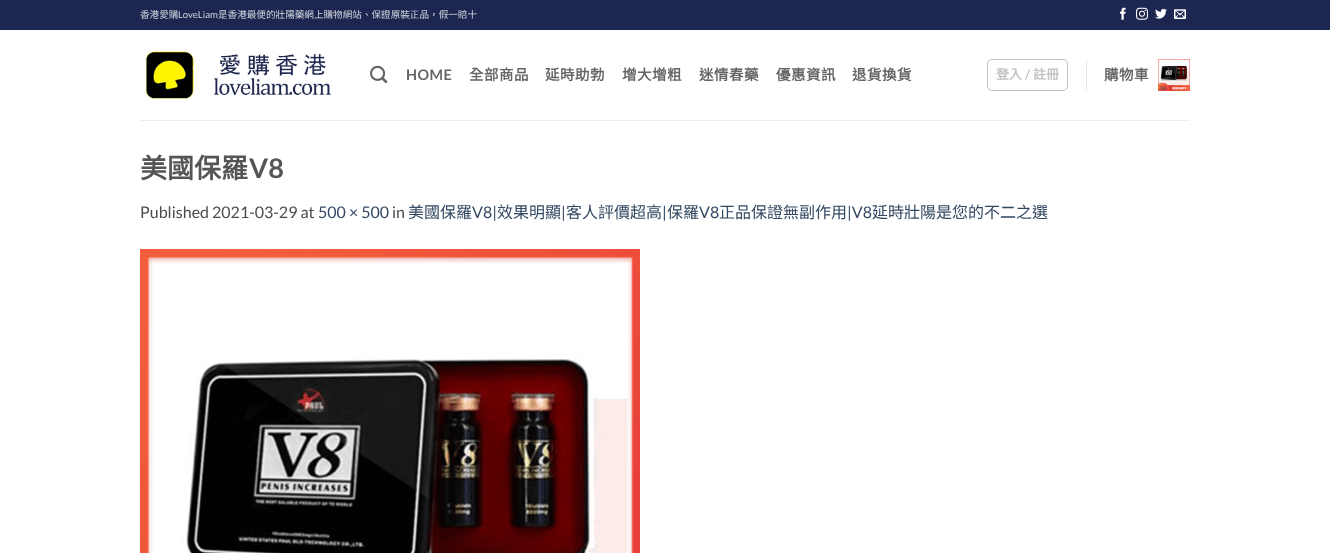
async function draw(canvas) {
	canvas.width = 1330;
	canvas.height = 553;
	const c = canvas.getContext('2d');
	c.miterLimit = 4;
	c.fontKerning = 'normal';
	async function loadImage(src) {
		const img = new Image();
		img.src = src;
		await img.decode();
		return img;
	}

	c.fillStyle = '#fff';
	c.fillRect(0, 0, 1330, 553);
	c.fillStyle = '#1c2650';
	c.fillRect(0, 0, 1330, 30);
	c.font = '9.6px Noto Sans CJK HK';
	c.fillStyle = '#d2d4dc';
	c.fillText('香港愛購', 140, 18);
	c.font = '9.6px Lato';
	c.fillText('LoveLiam', 178, 18);
	c.font = '9.6px Noto Sans CJK HK';
	c.fillText('是香港最便的壯陽藥網上購物網站、保證原裝正品，假一賠十', 218, 18);
	c.drawImage(await loadImage('img1.png'), 1120, 7, 6, 13);
	c.drawImage(await loadImage('img2.png'), 1136, 7, 12, 13);
	c.drawImage(await loadImage('img3.png'), 1155, 8, 12, 11);
	c.drawImage(await loadImage('img4.png'), 1174, 9, 12, 10);
	c.drawImage(await loadImage('img5.png'), 145, 51, 186, 48);
	c.drawImage(await loadImage('img6.png'), 370, 65, 18, 18);
	c.letterSpacing = '0.5px';
	c.font = 'bold 14.5px Lato';
	c.fillStyle = '#656565';
	c.fillText('HOME', 406, 80);
	c.font = 'bold 14.5px Noto Sans CJK HK';
	for (const [text, x, y] of [
		['全部商品', 469, 80],
		['延時助勃', 545, 80],
		['增大增粗', 622, 80],
		['迷情春藥', 699, 80],
		['優惠資訊', 776, 80],
		['退貨換貨', 852, 80],
	]) {
		c.fillText(text, x, y);
	}
	c.beginPath();
	c.roundRect(987.5, 59.5, 80, 31, 4.5);
	c.strokeStyle = '#c0c0c0';
	c.stroke();
	c.letterSpacing = '0px';
	c.font = 'bold 13px Noto Sans CJK HK';
	c.fillStyle = '#c0c0c0';
	c.fillText('登入', 996, 79);
	c.font = 'bold 13px Lato';
	c.fillText('/', 1025, 79);
	c.font = 'bold 13px Noto Sans CJK HK';
	c.fillText('註冊', 1033, 79);
	c.fillStyle = '#e6e6e6';
	c.fillRect(1086, 60, 1, 30);
	c.letterSpacing = '0.5px';
	c.font = 'bold 14.5px Noto Sans CJK HK';
	c.fillStyle = '#656565';
	c.fillText('購物車', 1104, 80);
	c.drawImage(await loadImage('img7.png'), 1158, 59, 32, 32);
	c.fillStyle = '#ededed';
	c.fillRect(140, 120, 1050, 1);
	c.letterSpacing = '0px';
	c.font = 'bold 27px Noto Sans CJK HK';
	c.fillStyle = '#555';
	c.fillText('美國保羅', 140, 178);
	c.font = 'bold 27px Lato';
	c.fillText('V8', 249, 178);
	c.font = '16px Lato';
	c.fillStyle = '#4a4a4a';
	c.fillText('Published 2021-03-29 at', 140, 218);
	c.fillStyle = '#334862';
	c.fillText('500 × 500', 318, 218);
	c.fillStyle = '#4a4a4a';
	c.fillText('in', 392, 218);
	c.font = '16px Noto Sans CJK HK';
	c.fillStyle = '#334862';
	c.fillText('美國保羅', 408, 218);
	c.font = '16px Lato';
	c.fillText('V8|', 472, 218);
	c.font = '16px Noto Sans CJK HK';
	c.fillText('效果明顯', 497, 218);
	c.font = '16px Lato';
	c.fillText('|', 561, 218);
	c.font = '16px Noto Sans CJK HK';
	c.fillText('客人評價超高', 566, 218);
	c.font = '16px Lato';
	c.fillText('|', 662, 218);
	c.font = '16px Noto Sans CJK HK';
	c.fillText('保羅', 667, 218);
	c.font = '16px Lato';
	c.fillText('V8', 699, 218);
	c.font = '16px Noto Sans CJK HK';
	c.fillText('正品保證無副作用', 719, 218);
	c.font = '16px Lato';
	c.fillText('|V8', 847, 218);
	c.font = '16px Noto Sans CJK HK';
	c.fillText('延時壯陽是您的不二之選', 872, 218);
	c.drawImage(await loadImage('img8.png'), 140, 249, 500, 304);
}

draw(document.querySelector('canvas'));
